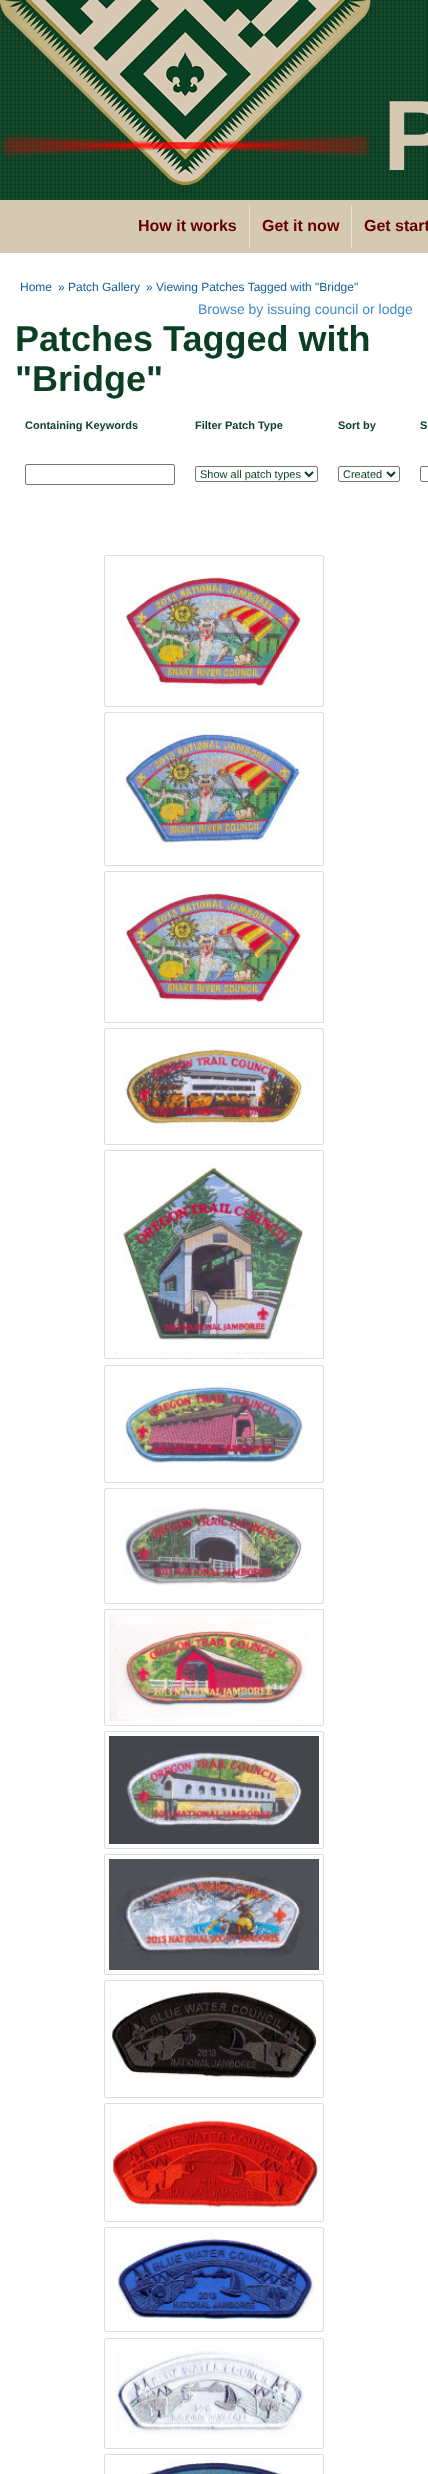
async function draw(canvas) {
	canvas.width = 428;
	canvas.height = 2474;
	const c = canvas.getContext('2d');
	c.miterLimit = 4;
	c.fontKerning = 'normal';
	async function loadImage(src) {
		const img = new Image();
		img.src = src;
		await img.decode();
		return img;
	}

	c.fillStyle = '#fff';
	c.fillRect(0, 0, 428, 2474);
	c.drawImage(await loadImage('img1.png'), 0, 0, 428, 200);
	c.drawImage(await loadImage('img2.png'), 0, 0, 371, 185);
	c.font = 'bold 100px Liberation Sans';
	c.fillStyle = '#d6c9b2';
	c.fillText('P', 383, 170);
	c.fillRect(0, 200, 428, 53);
	c.fillStyle = '#eae4d9';
	c.fillRect(249, 205, 1, 43);
	c.font = 'bold 16px Liberation Sans';
	c.fillStyle = '#600';
	c.fillText('How it works', 138, 231);
	c.fillStyle = '#eae4d9';
	c.fillRect(351, 205, 1, 43);
	c.fillStyle = '#600';
	c.fillText('Get it now', 262, 231);
	c.fillText('Get start', 364, 231);
	c.font = '12px Liberation Sans';
	c.fillStyle = '#135c98';
	for (const [text, x, y] of [
		['Home', 20, 291],
		['» Patch Gallery', 58, 291],
		['» Viewing Patches Tagged with "Bridge"', 146, 291],
	]) {
		c.fillText(text, x, y);
	}
	c.font = '14px Liberation Sans';
	c.fillStyle = '#428bca';
	c.fillText('Browse by issuing council or lodge', 198, 314);
	c.font = 'bold 36px Liberation Sans';
	c.fillStyle = '#0b3f23';
	c.fillText('Patches Tagged with', 15, 351);
	c.fillText('"Bridge"', 15, 391);
	c.font = 'bold 11px Liberation Sans';
	for (const [text, x, y] of [
		['Containing Keywords', 25, 429],
		['Filter Patch Type', 195, 429],
		['Sort by', 338, 429],
		['S', 420, 429],
	]) {
		c.fillText(text, x, y);
	}
	c.beginPath();
	c.roundRect(25.5, 464.5, 149, 20, 1.5);
	c.strokeStyle = '#767676';
	c.stroke();
	c.beginPath();
	c.roundRect(195.5, 466.5, 122, 15, 1.5);
	c.stroke();
	c.beginPath();
	c.moveTo(305, 472);
	c.lineTo(309, 476);
	c.lineTo(313, 472);
	c.strokeStyle = '#0b3f23';
	c.lineWidth = 2;
	c.stroke();
	c.font = '11px Liberation Sans';
	c.fillText('Show all patch types', 200, 478);
	c.beginPath();
	c.roundRect(338.5, 466.5, 61, 15, 1.5);
	c.strokeStyle = '#767676';
	c.lineWidth = 1;
	c.stroke();
	c.beginPath();
	c.moveTo(387, 472);
	c.lineTo(391, 476);
	c.lineTo(395, 472);
	c.strokeStyle = '#0b3f23';
	c.lineWidth = 2;
	c.stroke();
	c.fillText('Created', 343, 478);
	c.beginPath();
	c.roundRect(420.5, 466.5, 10, 15, 1.5);
	c.strokeStyle = '#767676';
	c.lineWidth = 1;
	c.stroke();
	c.beginPath();
	c.roundRect(104.5, 555.5, 219, 151, 1.5);
	c.strokeStyle = '#dedede';
	c.stroke();
	c.drawImage(await loadImage('img3.png'), 125, 577, 177, 110);
	c.beginPath();
	c.roundRect(104.5, 712.5, 219, 153, 1.5);
	c.stroke();
	c.drawImage(await loadImage('img4.png'), 125, 733, 177, 110);
	c.beginPath();
	c.roundRect(104.5, 871.5, 219, 151, 1.5);
	c.stroke();
	c.drawImage(await loadImage('img3.png'), 125, 893, 177, 110);
	c.beginPath();
	c.roundRect(104.5, 1028.5, 219, 116, 1.5);
	c.stroke();
	c.drawImage(await loadImage('img5.png'), 125, 1049, 184, 77);
	c.beginPath();
	c.roundRect(104.5, 1150.5, 219, 208, 1.5);
	c.stroke();
	c.drawImage(await loadImage('img6.png'), 113, 1163, 191, 191);
	c.beginPath();
	c.roundRect(104.5, 1365.5, 219, 117, 1.5);
	c.stroke();
	c.drawImage(await loadImage('img7.png'), 125, 1382, 178, 81);
	c.beginPath();
	c.roundRect(104.5, 1488.5, 219, 115, 1.5);
	c.stroke();
	c.drawImage(await loadImage('img8.png'), 125, 1507, 177, 79);
	c.beginPath();
	c.roundRect(104.5, 1609.5, 219, 116, 1.5);
	c.stroke();
	c.drawImage(await loadImage('img9.png'), 109, 1614, 198, 107);
	c.beginPath();
	c.roundRect(104.5, 1731.5, 219, 117, 1.5);
	c.stroke();
	c.drawImage(await loadImage('img10.png'), 109, 1736, 210, 108);
	c.beginPath();
	c.roundRect(104.5, 1854.5, 219, 120, 1.5);
	c.stroke();
	c.drawImage(await loadImage('img11.png'), 109, 1859, 210, 111);
	c.beginPath();
	c.roundRect(104.5, 1980.5, 219, 117, 1.5);
	c.stroke();
	c.drawImage(await loadImage('img12.png'), 109, 1989, 210, 90);
	c.beginPath();
	c.roundRect(104.5, 2103.5, 219, 118, 1.5);
	c.stroke();
	c.drawImage(await loadImage('img13.png'), 109, 2116, 210, 93);
	c.beginPath();
	c.roundRect(104.5, 2227.5, 219, 104, 1.5);
	c.stroke();
	c.drawImage(await loadImage('img14.png'), 117, 2232, 201, 95);
	c.beginPath();
	c.roundRect(104.5, 2338.5, 219, 110, 1.5);
	c.stroke();
	c.drawImage(await loadImage('img15.png'), 115, 2351, 189, 83);
	c.beginPath();
	c.roundRect(104.5, 2454.5, 219, 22, 1.5);
	c.stroke();
	c.drawImage(await loadImage('img16.png'), 143, 2459, 142, 15);
}

draw(document.querySelector('canvas'));
